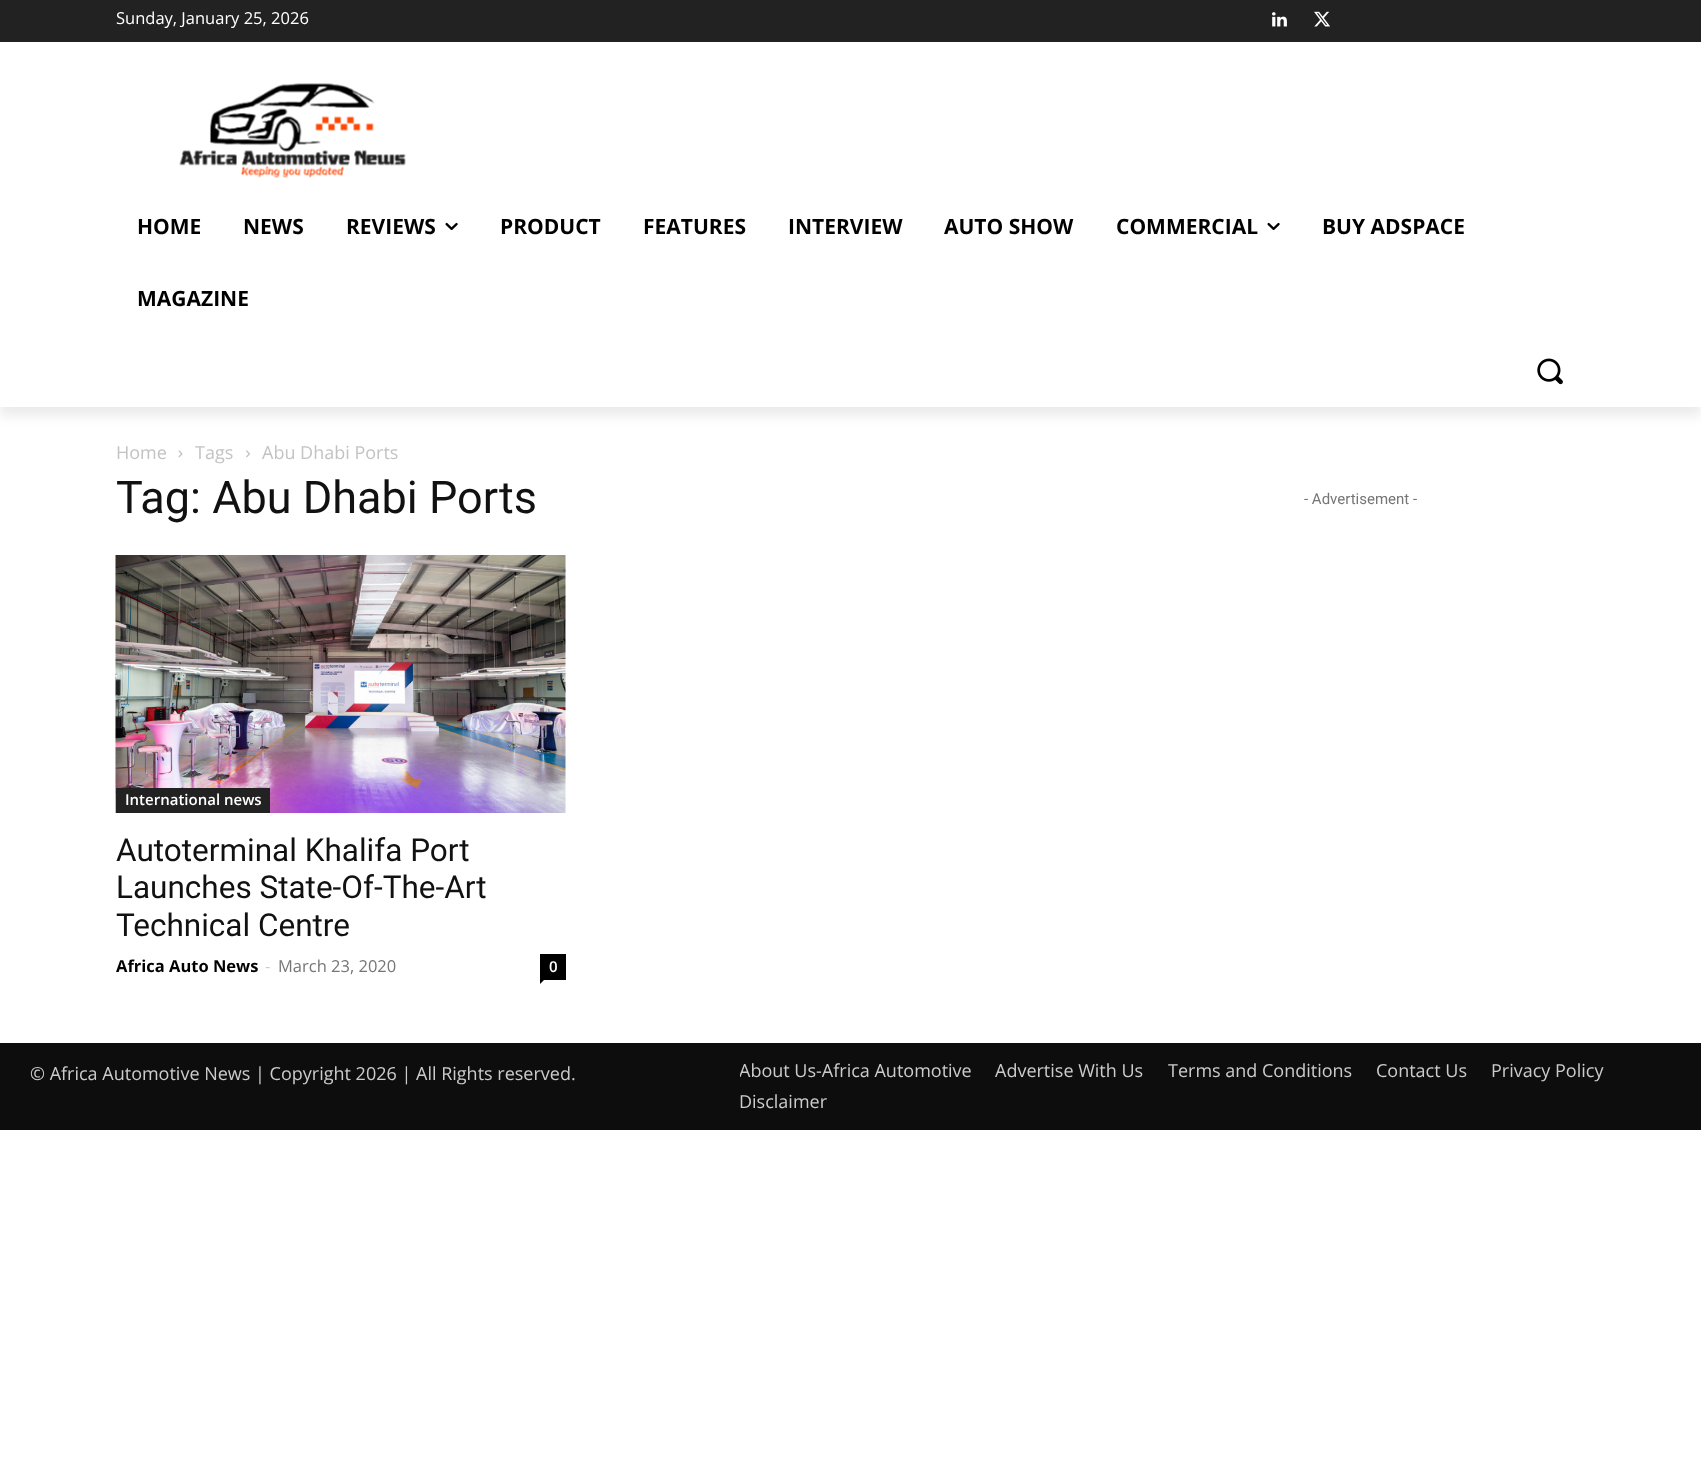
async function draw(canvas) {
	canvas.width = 1701;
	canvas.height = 1471;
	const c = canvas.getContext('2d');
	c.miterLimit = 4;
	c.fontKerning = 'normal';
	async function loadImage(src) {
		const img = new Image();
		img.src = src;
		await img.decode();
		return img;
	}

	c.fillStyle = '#fff';
	c.fillRect(0, 0, 1701, 1471);
	c.fillStyle = '#222';
	c.fillRect(0, 0, 1701, 42);
	c.drawImage(await loadImage('img1.png'), 1272, 12, 15, 15);
	c.drawImage(await loadImage('img2.png'), 1314, 11, 16, 16);
	c.drawImage(await loadImage('img3.png'), 179, 83, 227, 95);
	c.save();
	c.beginPath();
	c.moveTo(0, 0);
	c.lineTo(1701, 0);
	c.lineTo(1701, 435);
	c.lineTo(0, 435);
	c.closePath();
	c.moveTo(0, 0);
	c.lineTo(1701, 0);
	c.lineTo(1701, 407);
	c.lineTo(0, 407);
	c.closePath();
	c.clip('evenodd');
	c.fillStyle = '#00000014';
	c.filter = 'blur(6px)';
	c.beginPath();
	c.rect(0, 9, 1701, 407);
	c.fill();
	c.filter = 'none';
	c.restore();
	c.font = '16.5px Open Sans';
	c.fillStyle = '#fff';
	c.fillText('Sunday, January 25, 2026', 116, 24);
	c.font = 'bold 21px Open Sans';
	c.fillStyle = '#000';
	for (const [text, x, y] of [
		['HOME', 137, 234],
		['NEWS', 243, 234],
		['REVIEWS', 346, 234],
	]) {
		c.fillText(text, x, y);
	}
	c.drawImage(await loadImage('img4.png'), 445, 222, 13, 8);
	for (const [text, x, y] of [
		['PRODUCT', 500, 234],
		['FEATURES', 643, 234],
		['INTERVIEW', 788, 234],
		['AUTO SHOW', 944, 234],
		['COMMERCIAL', 1116, 234],
	]) {
		c.fillText(text, x, y);
	}
	c.drawImage(await loadImage('img4.png'), 1267, 222, 13, 8);
	c.fillText('BUY ADSPACE', 1322, 234);
	c.fillText('MAGAZINE', 137, 306);
	c.drawImage(await loadImage('img5.png'), 1537, 358, 26, 27);
	c.font = '18px Open Sans';
	c.fillStyle = '#c3c3c3';
	c.fillText('Home', 116, 459);
	c.drawImage(await loadImage('img6.png'), 178, 450, 5, 8);
	c.fillText('Tags', 195, 459);
	c.drawImage(await loadImage('img7.png'), 246, 450, 4, 8);
	c.fillText('Abu Dhabi Ports', 262, 459);
	c.font = '45px Roboto';
	c.fillStyle = '#111';
	c.fillText('Tag: Abu Dhabi Ports', 116, 513);
	c.drawImage(await loadImage('img8.png'), 115, 555, 451, 258);
	c.fillStyle = '#222';
	c.fillRect(116, 788, 154, 25);
	c.font = '600 15px Open Sans';
	c.fillStyle = '#fff';
	c.fillText('International news', 125, 805);
	c.font = '31.5px Roboto';
	c.fillStyle = '#111';
	for (const [text, x, y] of [
		['Autoterminal Khalifa Port', 116, 861],
		['Launches State-Of-The-Art', 116, 898],
		['Technical Centre', 116, 936],
	]) {
		c.fillText(text, x, y);
	}
	c.font = 'bold 16.5px Open Sans';
	c.fillStyle = '#000';
	c.fillText('Africa Auto News', 116, 972);
	c.font = '16.5px Open Sans';
	c.fillStyle = '#ccc';
	c.fillText('-', 265, 972);
	c.fillStyle = '#767676';
	c.fillText('March 23, 2020', 278, 972);
	c.fillStyle = '#000';
	c.fillRect(540, 954, 26, 26);
	c.font = '600 15px Open Sans';
	c.fillStyle = '#fff';
	c.fillText('0', 549, 972);
	c.fillStyle = '#000';
	c.beginPath();
	c.moveTo(540, 979.5);
	c.lineTo(544.5, 979.5);
	c.lineTo(540, 984);
	c.closePath();
	c.fill();
	c.font = '15px Roboto';
	c.fillStyle = '#767676';
	c.fillText('- Advertisement -', 1304, 504);
	c.fillStyle = '#0d0d0d';
	c.fillRect(0, 1043, 1701, 87);
	c.font = '18px Open Sans';
	c.fillStyle = '#ccc';
	c.fillText('© Africa Automotive News | Copyright 2026 | All Rights reserved.', 30, 1080);
	c.save();
	c.beginPath();
	c.rect(740, 1043, 931, 87);
	c.clip();
	c.fillText('About Us-Africa Automotive', 739, 1077);
	c.restore();
	for (const [text, x, y] of [
		['Advertise With Us', 995, 1077],
		['Terms and Conditions', 1168, 1077],
		['Contact Us', 1376, 1077],
		['Privacy Policy', 1491, 1077],
		['Disclaimer', 739, 1108],
	]) {
		c.fillText(text, x, y);
	}
}

draw(document.querySelector('canvas'));
